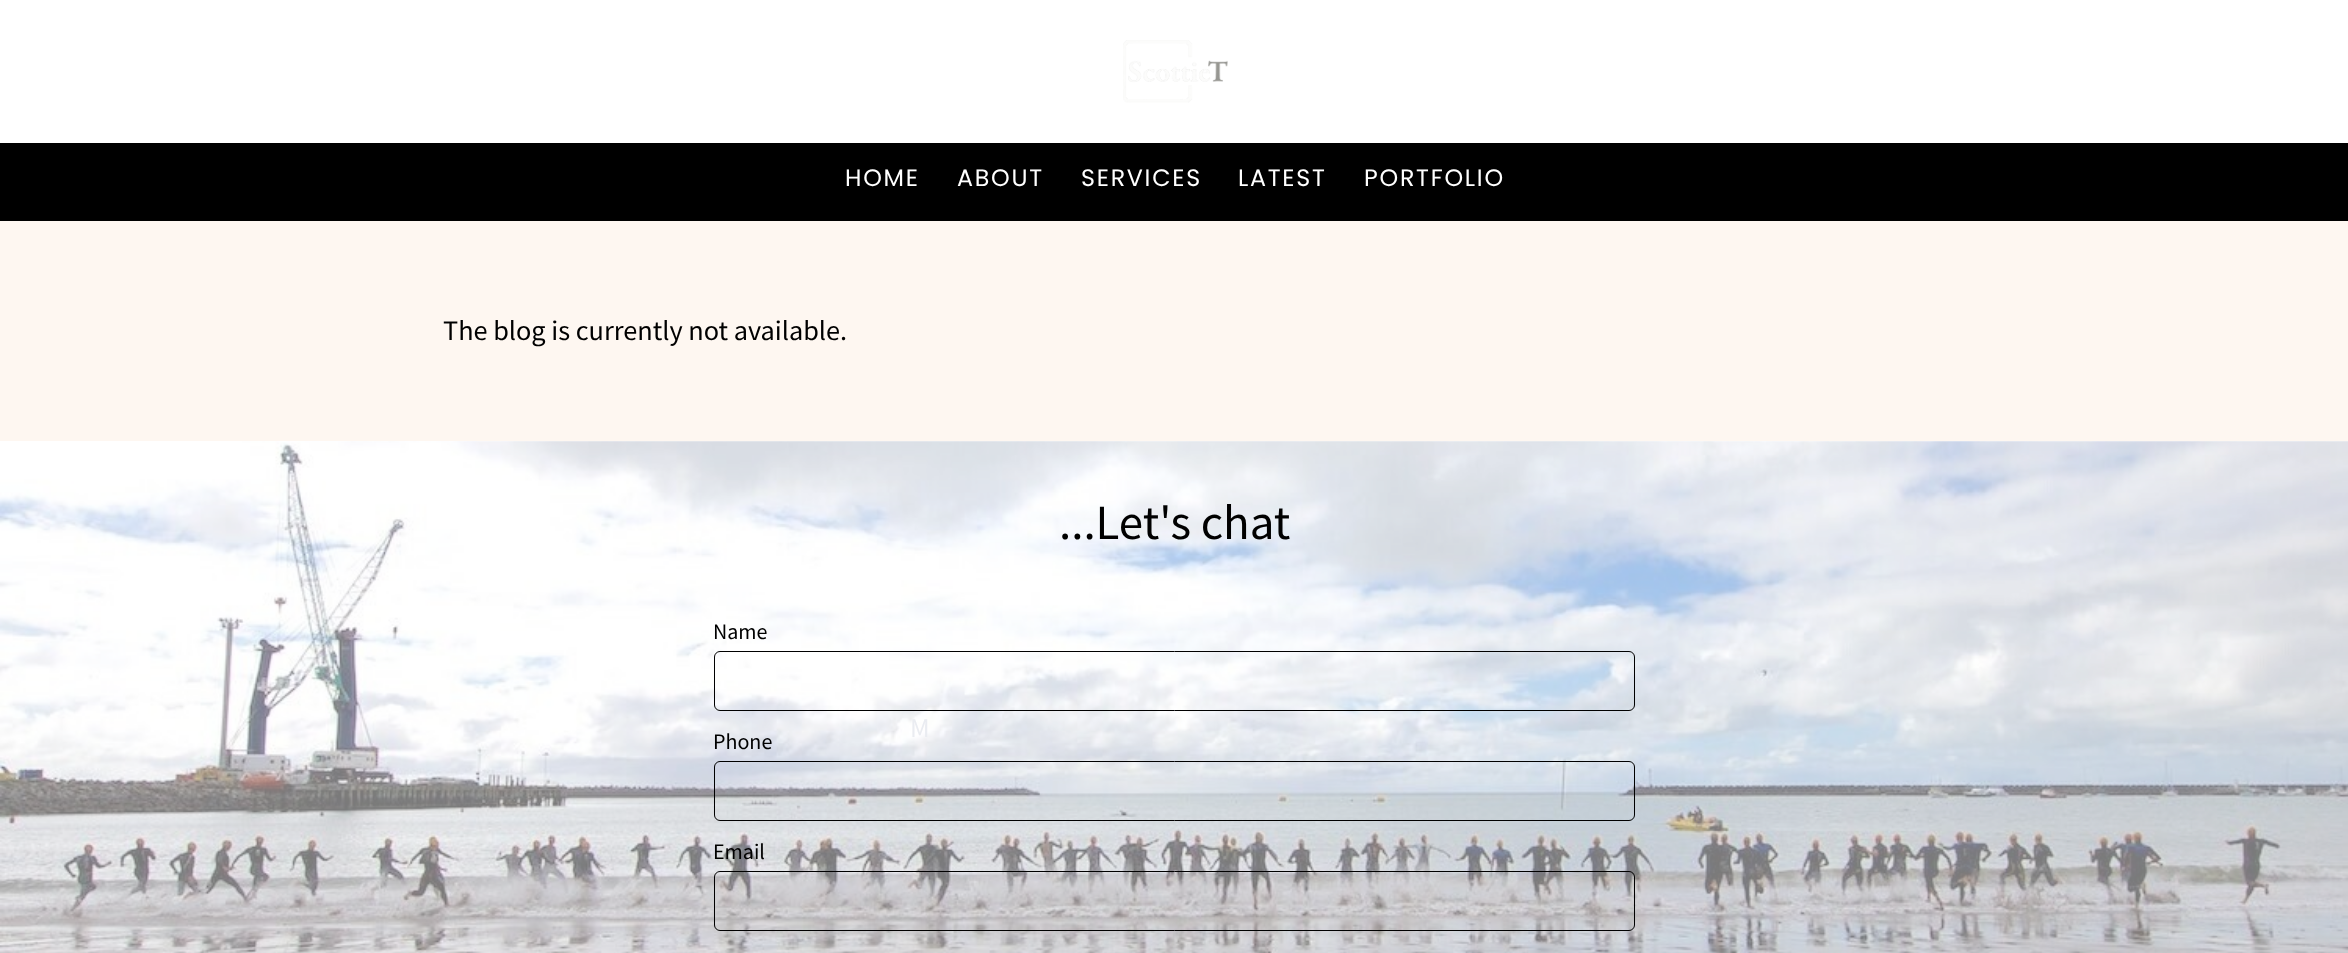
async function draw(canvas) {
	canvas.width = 2348;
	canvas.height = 953;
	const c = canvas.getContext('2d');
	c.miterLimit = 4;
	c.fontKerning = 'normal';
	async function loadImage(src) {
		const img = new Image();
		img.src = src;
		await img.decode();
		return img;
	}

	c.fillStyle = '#fef7f1';
	c.fillRect(0, 0, 2348, 953);
	c.fillStyle = '#fff';
	c.fillRect(0, 0, 2348, 143);
	c.drawImage(await loadImage('img1.png'), 1123, 40, 105, 63);
	c.fillStyle = '#000';
	c.fillRect(0, 143, 2348, 78);
	c.letterSpacing = '1.75px';
	c.font = '23.75px Poppins';
	c.fillStyle = '#fff';
	for (const [text, x, y] of [
		['HOME', 845, 186],
		['ABOUT', 957, 186],
		['SERVICES', 1081, 186],
		['LATEST', 1238, 186],
		['PORTFOLIO', 1364, 186],
	]) {
		c.fillText(text, x, y);
	}
	c.letterSpacing = '0px';
	c.font = '28.25px Source Sans Pro';
	c.fillStyle = '#000';
	c.fillText('The blog is currently not available.', 443, 340);
	c.fillStyle = '#fff';
	c.fillRect(0, 441, 2348, 512);
	c.drawImage(await loadImage('img2.png'), 0, 441, 2348, 512);
	c.font = '49px Source Sans Pro';
	c.fillStyle = '#000';
	c.fillText('...Let\'s chat', 1059, 539);
	c.font = '22px Source Sans Pro';
	c.fillText('Name', 713, 639);
	c.beginPath();
	c.roundRect(714.5, 651.5, 920, 59, 5.5);
	c.strokeStyle = '#000';
	c.stroke();
	c.font = '27px Source Sans Pro';
	c.fillStyle = '#eaecf1';
	c.fillText('M', 910, 737);
	c.font = '22px Source Sans Pro';
	c.fillStyle = '#000';
	c.fillText('Phone', 713, 749);
	c.beginPath();
	c.roundRect(714.5, 761.5, 920, 59, 5.5);
	c.stroke();
	c.fillText('Email', 713, 859);
	c.beginPath();
	c.roundRect(714.5, 871.5, 920, 59, 5.5);
	c.stroke();
}

draw(document.querySelector('canvas'));
